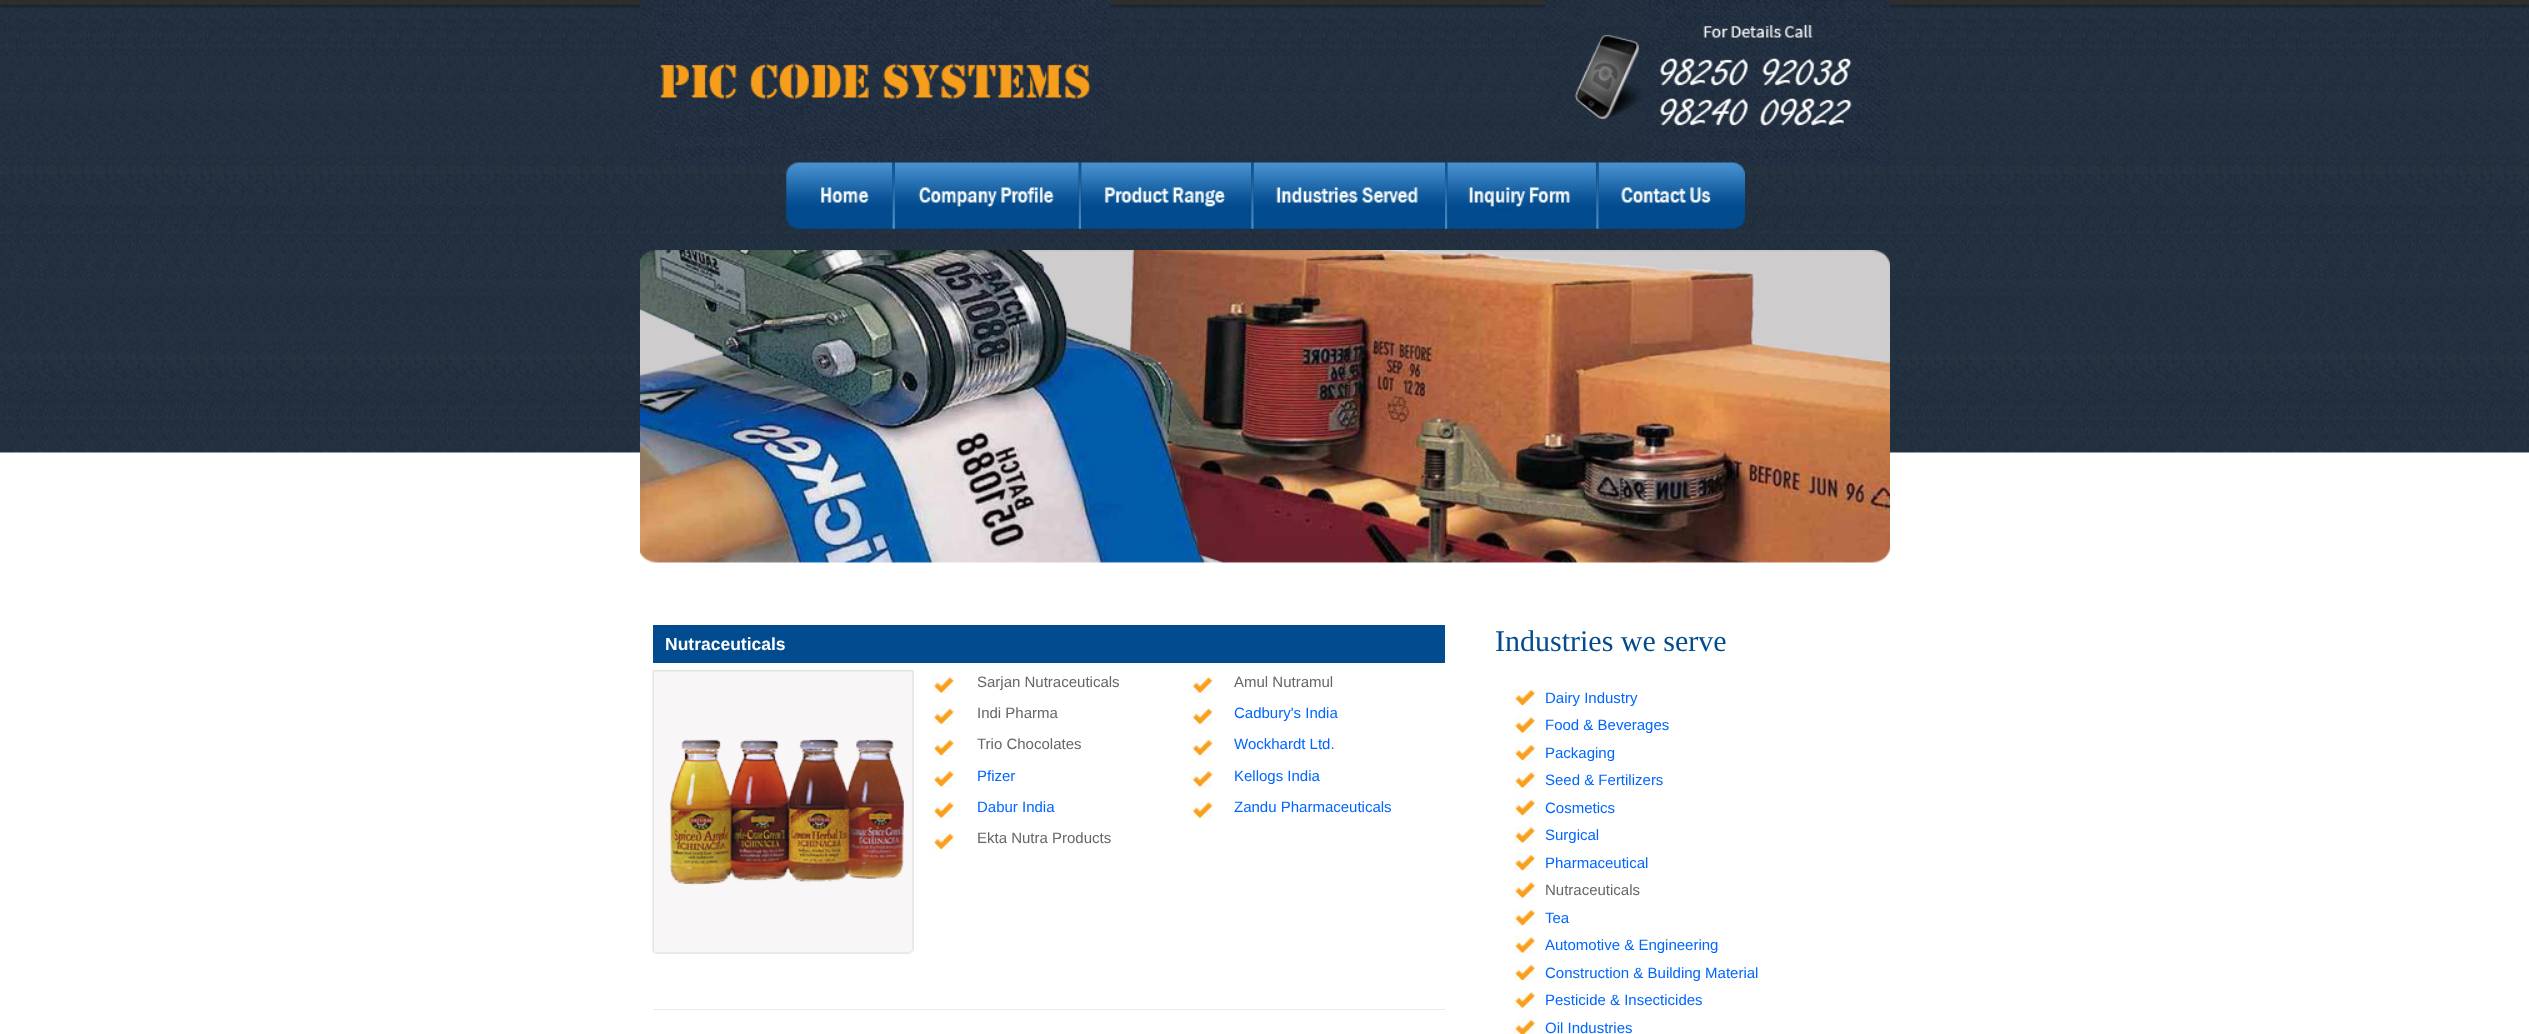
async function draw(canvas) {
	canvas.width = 2529;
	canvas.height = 1034;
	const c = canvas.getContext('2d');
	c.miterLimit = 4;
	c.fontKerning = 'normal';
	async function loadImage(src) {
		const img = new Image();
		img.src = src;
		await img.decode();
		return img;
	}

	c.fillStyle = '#fff';
	c.fillRect(0, 0, 2529, 1034);
	c.drawImage(await loadImage('img1.png'), 0, 0, 2529, 453);
	c.drawImage(await loadImage('img2.png'), 640, 0, 470, 163);
	c.drawImage(await loadImage('img3.png'), 1545, 0, 345, 163);
	c.drawImage(await loadImage('img4.png'), 786, 162, 107, 67);
	c.drawImage(await loadImage('img5.png'), 892, 162, 3, 67);
	c.drawImage(await loadImage('img6.png'), 895, 162, 184, 67);
	c.drawImage(await loadImage('img7.png'), 1078, 162, 4, 67);
	c.drawImage(await loadImage('img8.png'), 1081, 162, 171, 67);
	c.drawImage(await loadImage('img9.png'), 1251, 162, 3, 67);
	c.drawImage(await loadImage('img10.png'), 1253, 162, 192, 67);
	c.drawImage(await loadImage('img11.png'), 1445, 162, 3, 67);
	c.drawImage(await loadImage('img12.png'), 1447, 162, 150, 67);
	c.drawImage(await loadImage('img13.png'), 1596, 162, 3, 67);
	c.drawImage(await loadImage('img14.png'), 1598, 162, 147, 67);
	c.drawImage(await loadImage('img15.png'), 640, 250, 1250, 313);
	c.fillStyle = '#014b8e';
	c.fillRect(653, 625, 792, 38);
	c.font = 'bold 17.5px Liberation Sans';
	c.fillStyle = '#fff';
	c.fillText('Nutraceuticals', 665, 650);
	c.drawImage(await loadImage('img16.png'), 652, 670, 262, 284);
	c.drawImage(await loadImage('img17.png'), 932, 676, 22, 18);
	c.font = '15px Liberation Sans';
	c.fillStyle = '#666';
	c.fillText('Sarjan Nutraceuticals', 977, 687);
	c.drawImage(await loadImage('img18.png'), 932, 707, 23, 18);
	c.fillText('Indi Pharma', 977, 718);
	c.drawImage(await loadImage('img19.png'), 932, 739, 23, 18);
	c.fillText('Trio Chocolates', 977, 749);
	c.drawImage(await loadImage('img20.png'), 932, 770, 23, 18);
	c.fillStyle = '#06f';
	c.fillText('Pfizer', 977, 781);
	c.drawImage(await loadImage('img17.png'), 932, 801, 22, 18);
	c.fillText('Dabur India', 977, 812);
	c.drawImage(await loadImage('img18.png'), 932, 832, 23, 18);
	c.fillStyle = '#666';
	c.fillText('Ekta Nutra Products', 977, 843);
	c.drawImage(await loadImage('img21.png'), 1191, 676, 22, 18);
	c.fillText('Amul Nutramul', 1234, 687);
	c.drawImage(await loadImage('img22.png'), 1191, 707, 22, 18);
	c.fillStyle = '#06f';
	c.fillText('Cadbury\'s India', 1234, 718);
	c.drawImage(await loadImage('img23.png'), 1191, 739, 22, 18);
	c.fillText('Wockhardt Ltd.', 1234, 749);
	c.drawImage(await loadImage('img24.png'), 1191, 770, 22, 18);
	c.fillText('Kellogs India', 1234, 781);
	c.drawImage(await loadImage('img21.png'), 1191, 801, 22, 18);
	c.fillText('Zandu Pharmaceuticals', 1234, 812);
	c.fillStyle = '#eaeaea';
	c.fillRect(653, 1009, 792, 1);
	c.font = '30px Liberation Serif';
	c.fillStyle = '#014b8e';
	c.fillText('Industries we serve', 1495, 651);
	c.drawImage(await loadImage('img25.png'), 1513, 689, 23, 18);
	c.font = '15px Liberation Sans';
	c.fillStyle = '#06f';
	c.fillText('Dairy Industry', 1545, 703);
	c.drawImage(await loadImage('img26.png'), 1513, 716, 23, 18);
	c.fillText('Food & Beverages', 1545, 730);
	c.drawImage(await loadImage('img25.png'), 1513, 744, 23, 18);
	c.fillText('Packaging', 1545, 758);
	c.drawImage(await loadImage('img26.png'), 1513, 771, 23, 18);
	c.fillText('Seed & Fertilizers', 1545, 785);
	c.drawImage(await loadImage('img25.png'), 1513, 799, 23, 18);
	c.fillText('Cosmetics', 1545, 813);
	c.drawImage(await loadImage('img26.png'), 1513, 826, 23, 18);
	c.fillText('Surgical', 1545, 840);
	c.drawImage(await loadImage('img25.png'), 1513, 854, 23, 18);
	c.fillText('Pharmaceutical', 1545, 868);
	c.drawImage(await loadImage('img26.png'), 1513, 881, 23, 18);
	c.fillStyle = '#666';
	c.fillText('Nutraceuticals', 1545, 895);
	c.drawImage(await loadImage('img25.png'), 1513, 909, 23, 18);
	c.fillStyle = '#06f';
	c.fillText('Tea', 1545, 923);
	c.drawImage(await loadImage('img26.png'), 1513, 936, 23, 18);
	c.fillText('Automotive & Engineering', 1545, 950);
	c.drawImage(await loadImage('img25.png'), 1513, 964, 23, 18);
	c.fillText('Construction & Building Material', 1545, 978);
	c.drawImage(await loadImage('img26.png'), 1513, 991, 23, 18);
	c.fillText('Pesticide & Insecticides', 1545, 1005);
	c.drawImage(await loadImage('img27.png'), 1513, 1019, 23, 15);
	c.fillText('Oil Industries', 1545, 1033);
}

draw(document.querySelector('canvas'));
